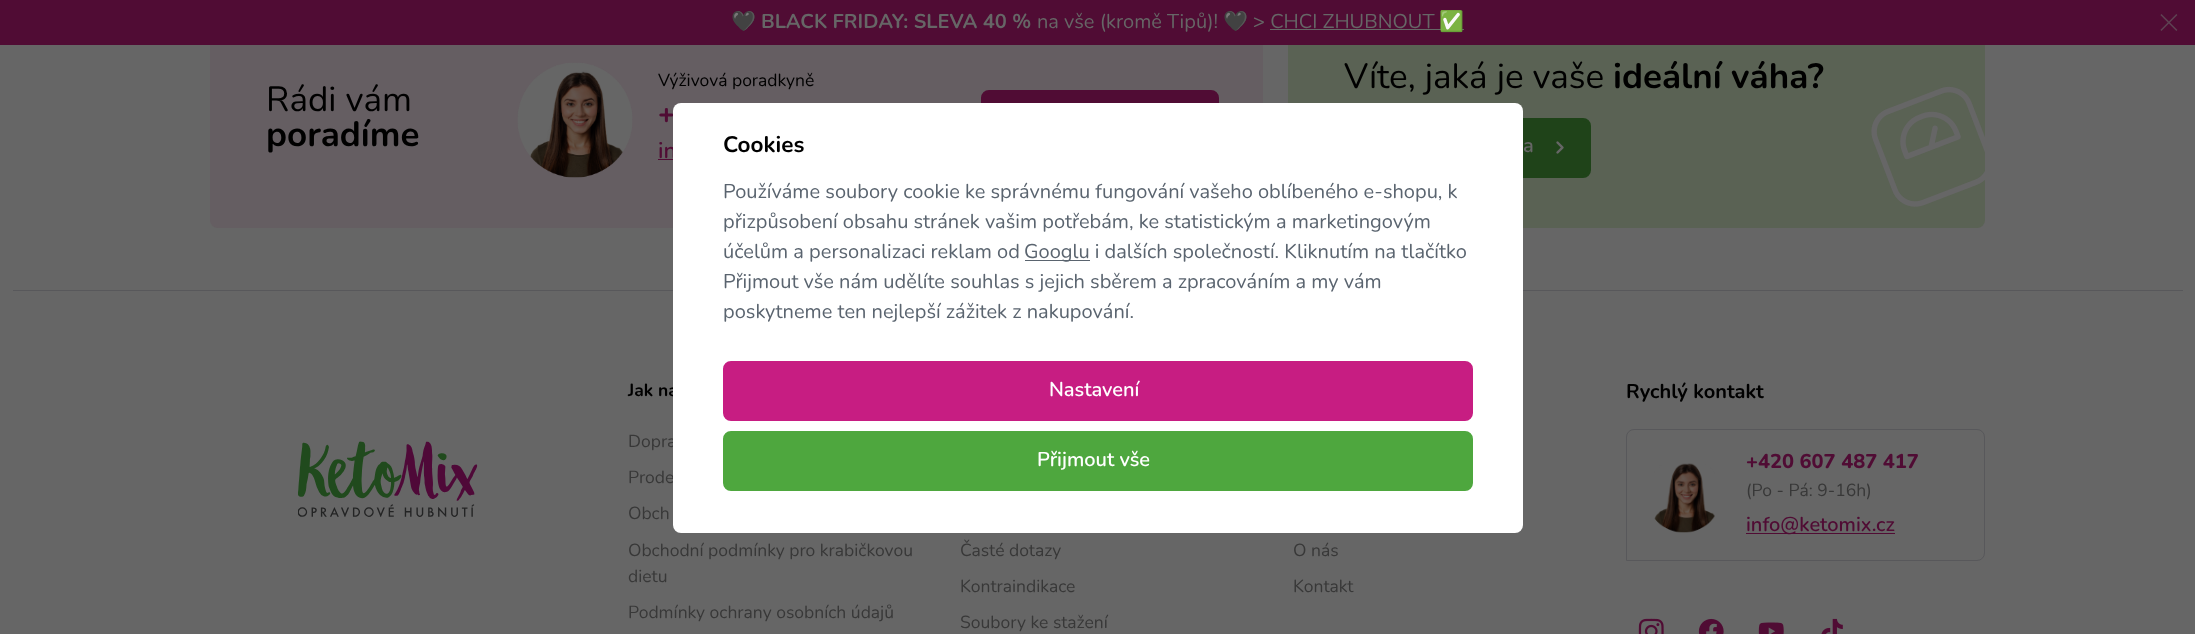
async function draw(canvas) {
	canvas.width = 2195;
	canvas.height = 634;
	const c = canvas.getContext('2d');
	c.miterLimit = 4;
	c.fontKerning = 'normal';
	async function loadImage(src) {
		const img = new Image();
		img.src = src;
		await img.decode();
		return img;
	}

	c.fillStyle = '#666';
	c.fillRect(0, 0, 2195, 634);
	c.fillStyle = '#655e62';
	c.beginPath();
	c.roundRect(210, 13, 1053, 215, 8);
	c.fill();
	c.fillStyle = '#5a6254';
	c.beginPath();
	c.roundRect(1288, 13, 697, 215, 8);
	c.fill();
	c.fillStyle = '#500c34';
	c.fillRect(0, 0, 2195, 45);
	c.font = 'bold 20px Noto Color Emoji';
	c.fillStyle = '#666';
	c.fillText('🖤', 731, 28);
	c.font = 'bold 20px Nunito';
	c.fillText('BLACK FRIDAY: SLEVA 40 %', 761, 28);
	c.font = '20px Nunito';
	c.fillText('na vše (kromě Tipů)!', 1037, 28);
	c.font = '20px Noto Color Emoji';
	c.fillText('🖤', 1223, 28);
	c.font = '20px Nunito';
	c.fillText('> CHCI ZHUBNOUT', 1253, 28);
	c.fillRect(1270, 29, 194, 1);
	c.font = '20px Noto Color Emoji';
	c.fillText('✅', 1439, 28);
	c.drawImage(await loadImage('img1.png'), 2160, 14, 18, 17);
	c.font = '35px Nunito';
	c.fillStyle = '#000';
	c.fillText('Rádi vám', 266, 111);
	c.font = 'bold 35px Nunito';
	c.fillText('poradíme', 266, 146);
	c.drawImage(await loadImage('img2.png'), 517, 62, 116, 116);
	c.font = '17.5px Nunito';
	c.fillText('Výživová poradkyně', 658, 86);
	c.font = '800 28px Nunito';
	c.fillStyle = '#500c34';
	c.fillText('+', 658, 123);
	c.font = '600 22.5px Nunito';
	c.fillText('in', 658, 158);
	c.fillRect(658, 159, 15, 1);
	c.beginPath();
	c.roundRect(982.5, 91.5, 235, 57, 6.5);
	c.fill();
	c.strokeStyle = '#500c34';
	c.lineWidth = 3;
	c.stroke();
	c.font = '35px Nunito';
	c.fillStyle = '#000';
	c.fillText('Víte, jaká je vaše', 1344, 88);
	c.font = 'bold 35px Nunito';
	c.fillText('ideální váha?', 1613, 88);
	c.fillStyle = '#1f4319';
	c.beginPath();
	c.roundRect(1345.5, 119.5, 244, 57, 6.5);
	c.fill();
	c.strokeStyle = '#1f4319';
	c.stroke();
	c.font = '600 20px Nunito';
	c.fillStyle = '#666';
	c.fillText('a', 1523, 152);
	c.drawImage(await loadImage('img3.png'), 1556, 141, 8, 13);
	c.drawImage(await loadImage('img4.png'), 1871, 86, 114, 121);
	c.fillStyle = '#58585b';
	c.fillRect(13, 290, 2170, 1);
	c.font = 'bold 17.5px Nunito';
	c.fillStyle = '#000';
	c.fillText('Jak na', 628, 396);
	c.font = '17.5px Nunito';
	c.fillStyle = '#383838';
	c.fillText('Dopra', 628, 447);
	c.fillText('Prode', 628, 483);
	c.fillStyle = '#fff';
	c.beginPath();
	c.roundRect(673, 103, 850, 430, 8);
	c.fill();
	c.font = 'bold 22.5px Nunito';
	c.fillStyle = '#000';
	c.fillText('Cookies', 723, 152);
	c.font = '20px Nunito';
	c.fillStyle = '#5a646f';
	for (const [text, x, y] of [
		['Používáme soubory cookie ke správnému fungování vašeho oblíbeného e-shopu, k', 723, 198],
		['přizpůsobení obsahu stránek vašim potřebám, ke statistickým a marketingovým', 723, 228],
		['účelům a personalizaci reklam od', 723, 258],
	]) {
		c.fillText(text, x, y);
	}
	c.fillRect(1025, 260, 65, 1);
	for (const [text, x, y] of [
		['Googlu i dalších společností. Kliknutím na tlačítko', 1024, 258],
		['Přijmout vše nám udělíte souhlas s jejich sběrem a zpracováním a my vám', 723, 288],
		['poskytneme ten nejlepší zážitek z nakupování.', 723, 318],
	]) {
		c.fillText(text, x, y);
	}
	c.fillStyle = '#c71d82';
	c.beginPath();
	c.roundRect(724.5, 362.5, 747, 57, 6.5);
	c.fill();
	c.strokeStyle = '#c71d82';
	c.stroke();
	c.font = '600 20px Nunito';
	c.fillStyle = '#fff';
	c.fillText('Nastavení', 1049, 396);
	c.fillStyle = '#4ea73e';
	c.beginPath();
	c.roundRect(724.5, 432.5, 747, 57, 6.5);
	c.fill();
	c.strokeStyle = '#4ea73e';
	c.stroke();
	c.fillStyle = '#fff';
	c.fillText('Přijmout vše', 1037, 466);
	c.drawImage(await loadImage('img5.png'), 298, 441, 180, 76);
	c.font = '17.5px Nunito';
	c.fillStyle = '#383838';
	for (const [text, x, y] of [
		['Obch', 628, 519],
		['Obchodní podmínky pro krabičkovou', 628, 556],
		['dietu', 628, 582],
		['Podmínky ochrany osobních údajů', 628, 618],
		['Časté dotazy', 960, 556],
		['Kontraindikace', 960, 592],
		['Soubory ke stažení', 960, 628],
		['O nás', 1293, 556],
		['Kontakt', 1293, 592],
	]) {
		c.fillText(text, x, y);
	}
	c.font = 'bold 20px Nunito';
	c.fillStyle = '#000';
	c.fillText('Rychlý kontakt', 1626, 398);
	c.beginPath();
	c.roundRect(1626.5, 429.5, 358, 131, [7.5, 7.5, 7.5, 0]);
	c.strokeStyle = '#58585b';
	c.lineWidth = 1;
	c.stroke();
	c.drawImage(await loadImage('img6.png'), 1654, 463, 61, 70);
	c.font = '800 20px Nunito';
	c.fillStyle = '#500c34';
	c.fillText('+420 607 487 417', 1746, 468);
	c.font = '17.5px Nunito';
	c.fillStyle = '#383838';
	c.fillText('(Po - Pá: 9-16h)', 1746, 496);
	c.fillStyle = '#500c34';
	c.fillRect(1746, 533, 149, 1);
	c.font = '600 20px Nunito';
	c.fillText('info@ketomix.cz', 1746, 531);
	c.drawImage(await loadImage('img7.png'), 1638, 618, 26, 16);
	c.drawImage(await loadImage('img8.png'), 1698, 618, 26, 16);
	c.drawImage(await loadImage('img9.png'), 1758, 622, 26, 12);
	c.drawImage(await loadImage('img10.png'), 1821, 618, 22, 16);
}

draw(document.querySelector('canvas'));
